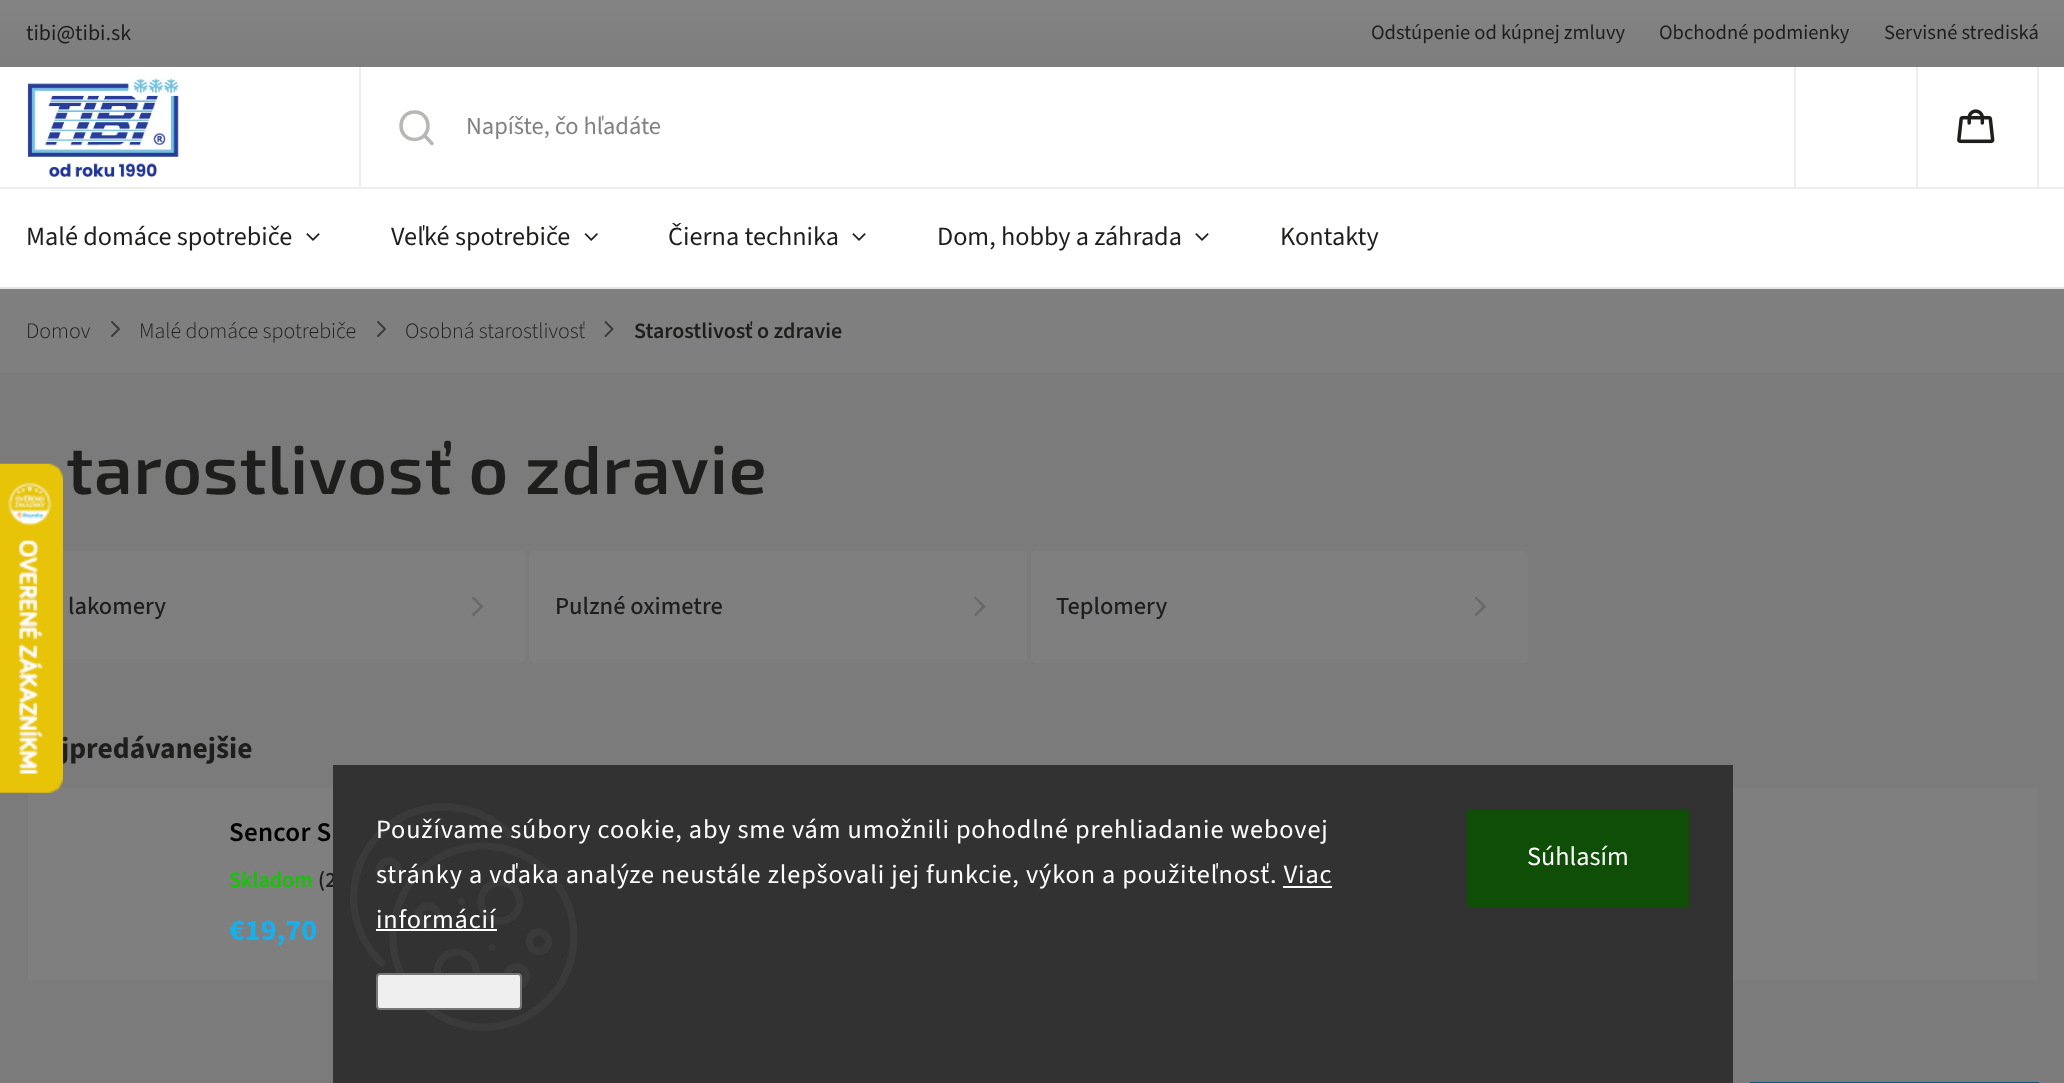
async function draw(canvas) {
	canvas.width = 2064;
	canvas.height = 1083;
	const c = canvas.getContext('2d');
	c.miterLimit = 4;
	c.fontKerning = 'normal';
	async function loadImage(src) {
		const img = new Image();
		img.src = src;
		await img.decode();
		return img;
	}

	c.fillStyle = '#f7f7f9';
	c.fillRect(0, 0, 2064, 1083);
	c.fillStyle = '#fff';
	c.fillRect(0, 289, 2064, 84);
	c.beginPath();
	c.moveTo(112, 336);
	c.lineTo(119, 329);
	c.lineTo(112, 322);
	c.strokeStyle = '#747474';
	c.lineWidth = 1.8;
	c.lineCap = 'round';
	c.lineJoin = 'round';
	c.stroke();
	c.beginPath();
	c.moveTo(378, 336);
	c.lineTo(385, 329);
	c.lineTo(378, 322);
	c.stroke();
	c.beginPath();
	c.moveTo(605.5, 336);
	c.lineTo(612.5, 329);
	c.lineTo(605.5, 322);
	c.stroke();
	c.beginPath();
	c.roundRect(28, 551, 497, 112, 5);
	c.fill();
	c.fillStyle = '#d3d3d3';
	c.beginPath();
	c.moveTo(473.5, 616.5);
	c.lineTo(471.5, 614.5);
	c.lineTo(480, 606.5);
	c.lineTo(471.5, 598);
	c.lineTo(473.5, 596.5);
	c.lineTo(483.5, 606.5);
	c.closePath();
	c.fill();
	c.fillStyle = '#fff';
	c.beginPath();
	c.roundRect(529, 551, 498, 112, 5);
	c.fill();
	c.fillStyle = '#d3d3d3';
	c.beginPath();
	c.moveTo(975.5, 616.5);
	c.lineTo(974, 614.5);
	c.lineTo(982, 606.5);
	c.lineTo(974, 598);
	c.lineTo(975.5, 596.5);
	c.lineTo(986, 606.5);
	c.closePath();
	c.fill();
	c.fillStyle = '#fff';
	c.beginPath();
	c.roundRect(1031, 551, 497, 112, 5);
	c.fill();
	c.fillStyle = '#d3d3d3';
	c.beginPath();
	c.moveTo(1476, 616.5);
	c.lineTo(1474.5, 614.5);
	c.lineTo(1482.5, 606.5);
	c.lineTo(1474.5, 598);
	c.lineTo(1476, 596.5);
	c.lineTo(1486.5, 606.5);
	c.closePath();
	c.fill();
	c.fillStyle = '#fff';
	c.fillRect(28, 788, 305, 192);
	c.fillRect(1733, 788, 304, 192);
	c.strokeStyle = '#14b1ef';
	c.lineWidth = 2;
	c.lineJoin = 'miter';
	c.strokeRect(1751, 1083, 287, 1);
	c.fillStyle = '#00000080';
	c.filter = 'blur(140px)';
	c.beginPath();
	c.rect(-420, -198, 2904, 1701);
	c.fill();
	c.filter = 'none';
	c.font = '22px "Source Sans 3"';
	c.fillStyle = '#1e1e1c';
	c.fillText('tibi@tibi.sk', 26, 40);
	c.font = '20.5px "Source Sans 3"';
	for (const [text, x, y] of [
		['Odstúpenie od kúpnej zmluvy', 1371, 39],
		['Obchodné podmienky', 1659, 39],
		['Servisné strediská', 1884, 39],
	]) {
		c.fillText(text, x, y);
	}
	c.fillStyle = '#fff';
	c.fillRect(0, 67, 2064, 220);
	c.fillStyle = '#e4e4e4';
	c.fillRect(0, 287, 2064, 2);
	c.drawImage(await loadImage('img1.png'), 27, 78, 152, 99);
	c.fillStyle = '#ededed';
	c.fillRect(359, 67, 2, 120);
	c.beginPath();
	c.moveTo(414.5, 139.5);
	c.bezierCurveTo(432.5, 139.5, 432.5, 112, 414.5, 112);
	c.bezierCurveTo(396.5, 112, 396.5, 139.5, 414.5, 139.5);
	c.closePath();
	c.moveTo(424.5, 135.5);
	c.lineTo(432, 143.5);
	c.strokeStyle = '#b7b7b6';
	c.lineWidth = 3.5;
	c.lineJoin = 'round';
	c.stroke();
	c.font = '24.5px "Source Sans 3"';
	c.fillStyle = '#818180';
	c.fillText('Napíšte, čo hľadáte', 466, 134);
	for (const [x, y, w, h, color] of [
		[1794, 67, 2, 120, '#ededed'],
		[2037, 67, 2, 120, '#ededed'],
		[1916, 67, 2, 120, '#ededed'],
	]) {
		c.fillStyle = color;
		c.fillRect(x, y, w, h);
	}
	c.drawImage(await loadImage('img2.png'), 1957, 109, 38, 35);
	c.fillRect(0, 187, 2064, 2);
	c.font = '26.25px "Source Sans 3"';
	c.fillStyle = '#1e1e1c';
	c.fillText('Malé domáce spotrebiče', 26, 245);
	c.drawImage(await loadImage('img3.png'), 306, 233, 14, 8);
	c.fillText('Veľké spotrebiče', 391, 245);
	c.drawImage(await loadImage('img4.png'), 584, 233, 14, 8);
	c.fillText('Čierna technika', 668, 245);
	c.drawImage(await loadImage('img3.png'), 852, 233, 14, 8);
	c.fillText('Dom, hobby a záhrada', 937, 245);
	c.drawImage(await loadImage('img3.png'), 1195, 233, 14, 8);
	c.fillText('Kontakty', 1280, 245);
	c.font = '300 22px "Source Sans 3"';
	for (const [text, x, y] of [
		['Domov', 26, 338],
		['Malé domáce spotrebiče', 139, 338],
		['Osobná starostlivosť', 405, 338],
	]) {
		c.fillText(text, x, y);
	}
	c.font = '600 22px "Source Sans 3"';
	c.fillText('Starostlivosť o zdravie', 634, 338);
	c.letterSpacing = '0.88px';
	c.font = '600 68.6px "Exo 2"';
	c.fillText('tarostlivosť o zdravie', 66, 494);
	c.letterSpacing = '0px';
	c.font = '500 24.5px "Source Sans 3"';
	for (const [text, x, y] of [
		['lakomery', 68, 614],
		['Pulzné oximetre', 555, 614],
		['Teplomery', 1056, 614],
	]) {
		c.fillText(text, x, y);
	}
	c.font = 'bold 29.5px "Source Sans 3"';
	c.fillText('jpredávanejšie', 61, 758);
	c.letterSpacing = '0.25px';
	c.font = '600 27px "Source Sans 3"';
	c.fillStyle = '#000';
	c.fillText('Sencor S', 229, 841);
	c.letterSpacing = '0px';
	c.font = '600 22px "Source Sans 3"';
	c.fillStyle = '#10c700';
	c.fillText('Skladom', 229, 887);
	c.fillStyle = '#1e1e1c';
	c.fillText('(2', 318, 887);
	c.font = 'bold 30px "Source Sans 3"';
	c.fillStyle = '#14b1ef';
	c.fillText('€19,70', 229, 940);
	c.drawImage(await loadImage('img5.png'), 0, 463, 63, 330);
	c.fillStyle = '#323232';
	c.fillRect(333, 765, 1400, 318);
	c.drawImage(await loadImage('img6.png'), 350, 803, 227, 228);
	c.letterSpacing = '0.88px';
	c.font = '26.25px "Source Sans 3"';
	c.fillStyle = '#fff';
	for (const [text, x, y] of [
		['Používame súbory cookie, aby sme vám umožnili pohodlné prehliadanie webovej', 376, 838],
		['stránky a vďaka analýze neustále zlepšovali jej funkcie, výkon a použiteľnosť. Viac', 376, 883],
		['informácií', 376, 928],
	]) {
		c.fillText(text, x, y);
	}
	c.fillRect(1283, 886, 49, 2);
	c.fillRect(376, 929, 121, 2);
	c.fillStyle = '#efefef';
	c.beginPath();
	c.roundRect(377, 974, 144, 35, 3);
	c.fill();
	c.strokeStyle = '#767676';
	c.lineWidth = 2;
	c.lineJoin = 'miter';
	c.stroke();
	c.fillStyle = '#0f4e06';
	c.fillRect(1467, 809, 222, 98);
	c.letterSpacing = '0px';
	c.fillStyle = '#fff';
	c.fillText('Súhlasím', 1527, 865);
}

draw(document.querySelector('canvas'));
